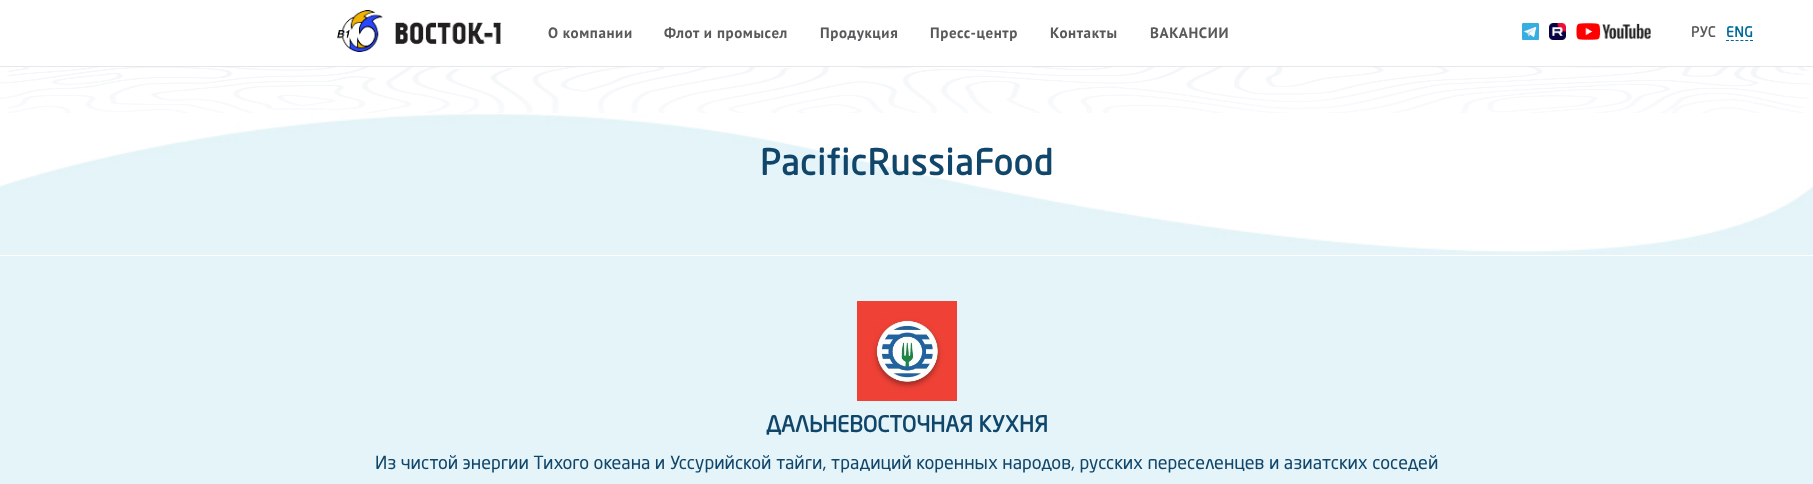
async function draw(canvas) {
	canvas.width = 1813;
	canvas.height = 484;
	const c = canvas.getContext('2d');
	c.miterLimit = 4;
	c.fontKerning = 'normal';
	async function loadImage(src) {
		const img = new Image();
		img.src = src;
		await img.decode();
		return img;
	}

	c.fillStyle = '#fff';
	c.fillRect(0, 0, 1813, 484);
	c.drawImage(await loadImage('img5.png'), 0, 66, 1813, 189);
	c.save();
	c.beginPath();
	c.rect(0, 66, 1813, 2);
	c.clip();
	c.fillStyle = '#e6e7e8';
	c.filter = 'blur(0.5px)';
	c.beginPath();
	c.rect(0, 11, 1813, 56);
	c.fill();
	c.filter = 'none';
	c.restore();
	c.drawImage(await loadImage('img1.png'), 337, 10, 164, 42);
	c.letterSpacing = '0.6px';
	c.font = 'bold 15px PT Sans';
	c.fillStyle = '#58595b';
	for (const [text, x, y] of [
		['О компании', 548, 38],
		['Флот и промысел', 664, 38],
		['Продукция', 820, 38],
		['Пресс-центр', 930, 38],
		['Контакты', 1050, 38],
		['ВАКАНСИИ', 1150, 38],
	]) {
		c.fillText(text, x, y);
	}
	c.drawImage(await loadImage('img2.png'), 1522, 23, 17, 17);
	c.drawImage(await loadImage('img3.png'), 1549, 23, 17, 17);
	c.drawImage(await loadImage('img4.png'), 1576, 23, 75, 17);
	c.letterSpacing = '0.5px';
	c.font = 'bold 14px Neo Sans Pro';
	c.fillText('РУС', 1691, 37);
	c.fillStyle = '#016a9c';
	c.fillText('ENG', 1726, 37);
	c.beginPath();
	c.moveTo(1726, 40.5);
	c.lineTo(1753, 40.5);
	c.strokeStyle = '#016a9c';
	c.setLineDash([3, 1.8]);
	c.stroke();
	c.letterSpacing = '1px';
	c.font = 'bold 35px Neo Sans Pro';
	c.fillStyle = '#11466b';
	c.fillText('PacificRussiaFood', 760, 175);
	c.fillStyle = '#e4f4f8';
	c.fillRect(0, 256, 1813, 228);
	c.drawImage(await loadImage('img6.png'), 857, 301, 100, 100);
	c.letterSpacing = '0px';
	c.font = 'bold 22px Neo Sans Pro';
	c.fillStyle = '#11466b';
	c.fillText('ДАЛЬНЕВОСТОЧНАЯ КУХНЯ', 766, 432);
	c.font = '18px Neo Sans Pro';
	c.fillText('Из чистой энергии Тихого океана и Уссурийской тайги, традиций коренных народов, русских переселенцев и азиатских соседей', 375, 469);
}

draw(document.querySelector('canvas'));
